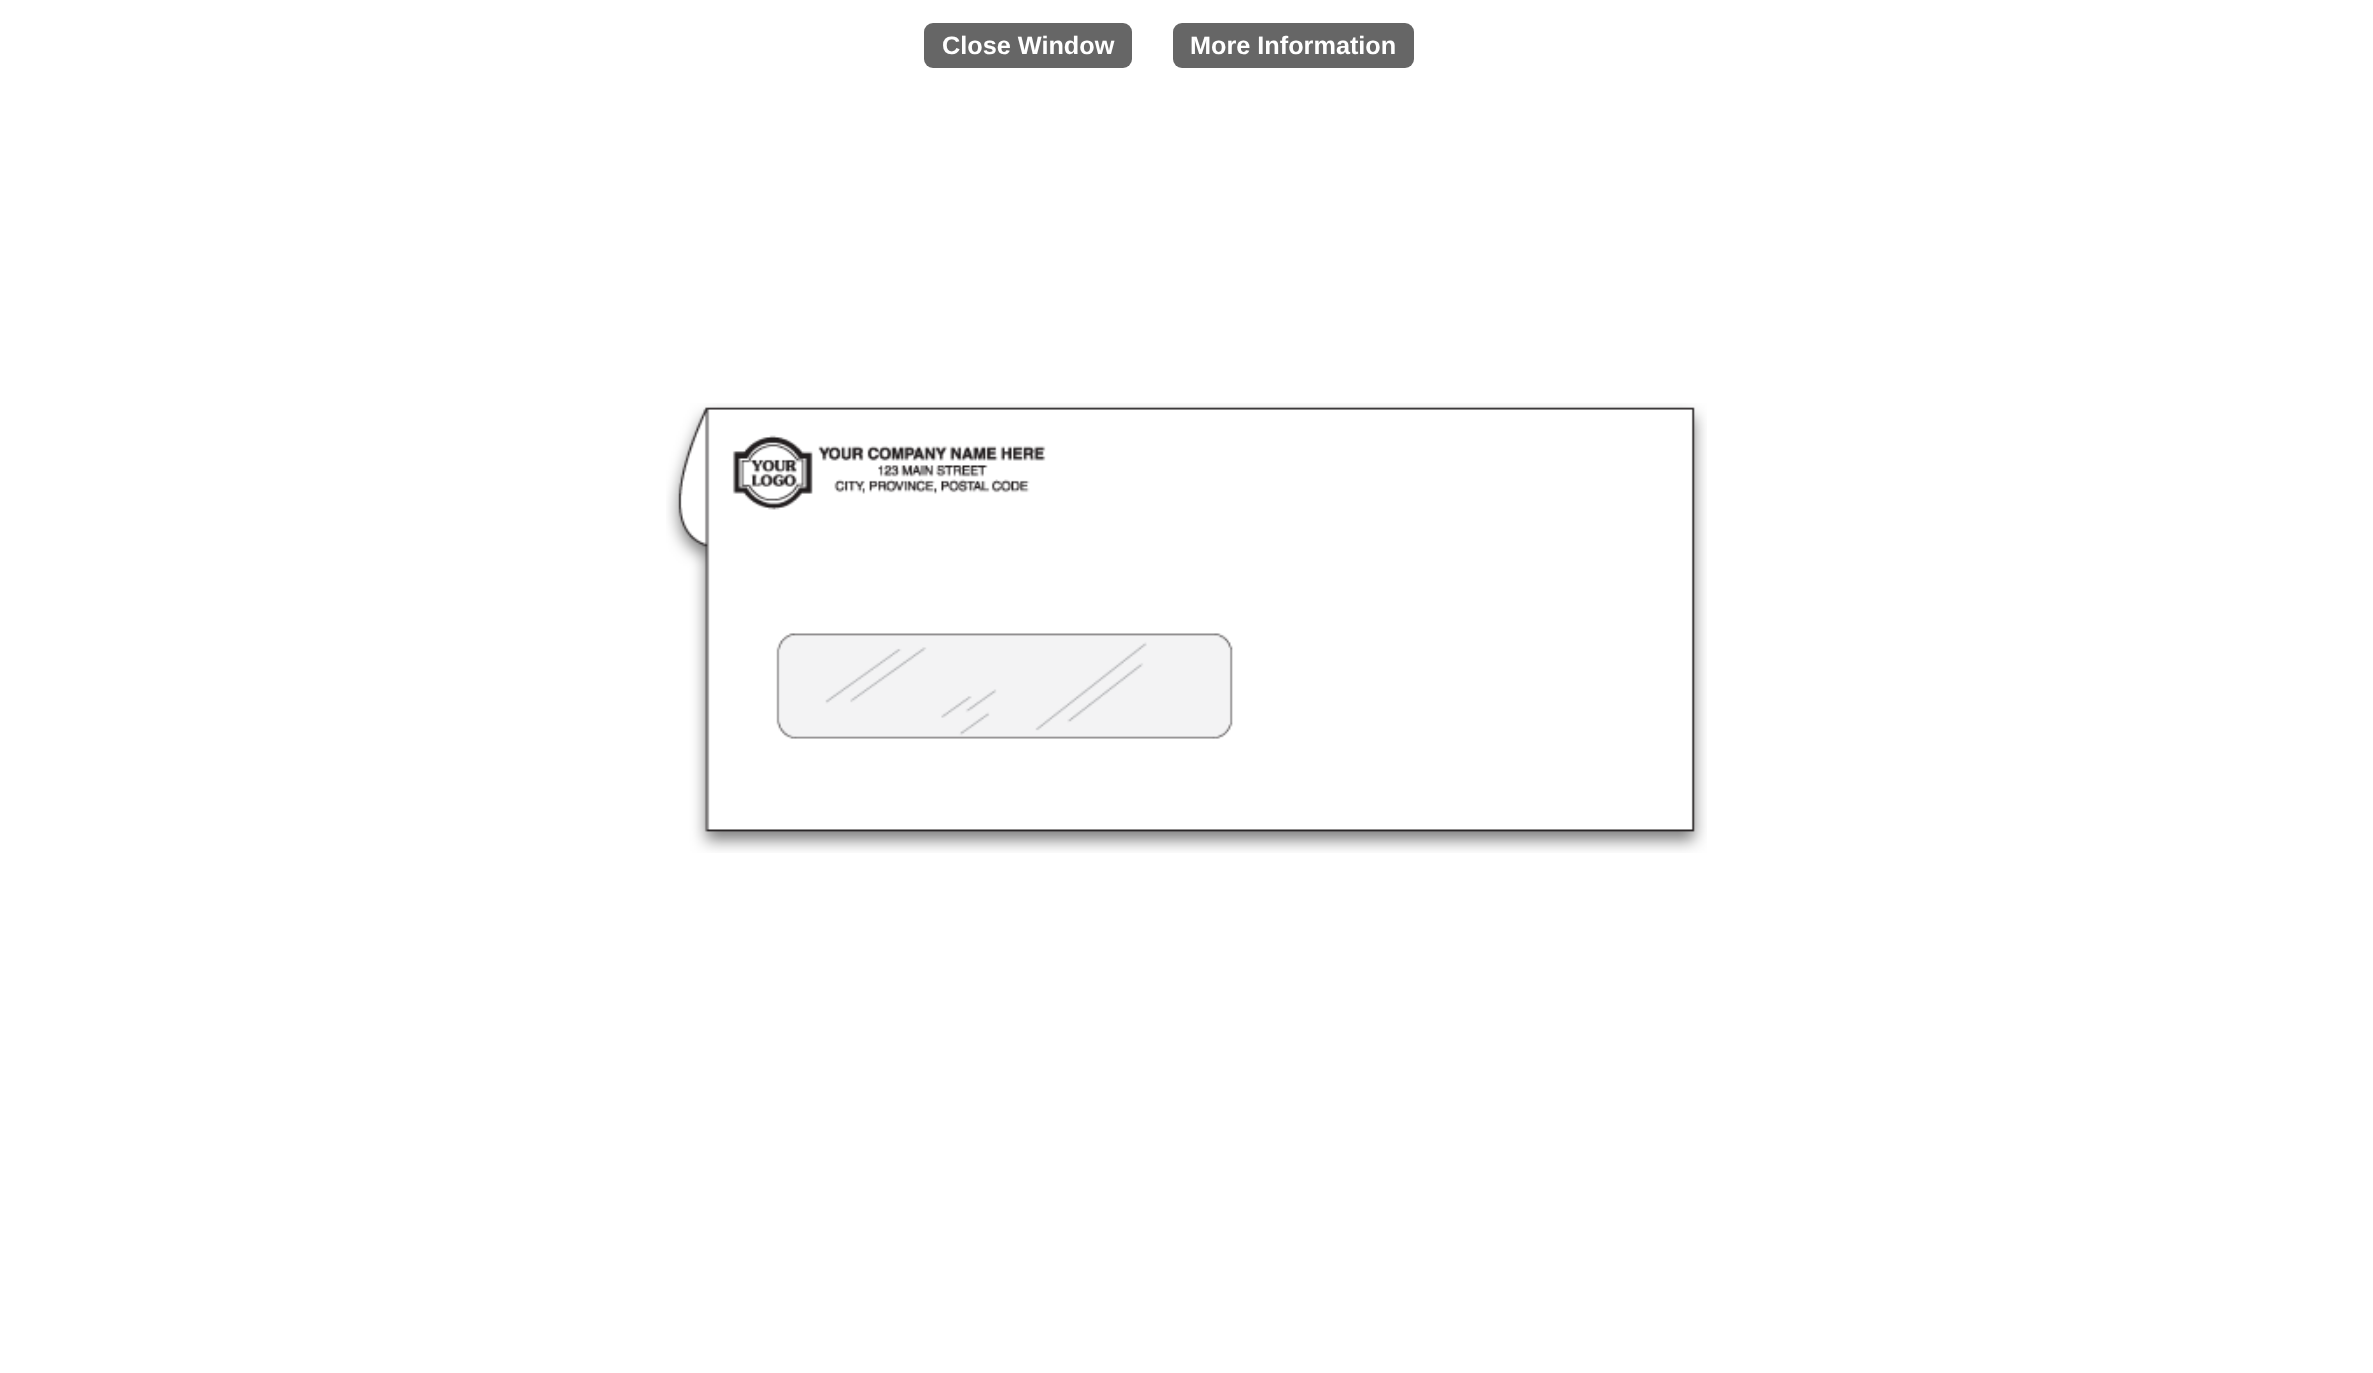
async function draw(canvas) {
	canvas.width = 2373;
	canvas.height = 1373;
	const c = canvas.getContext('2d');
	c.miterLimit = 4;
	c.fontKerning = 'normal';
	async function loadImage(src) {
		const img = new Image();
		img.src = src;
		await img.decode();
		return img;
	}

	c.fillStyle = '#fff';
	c.fillRect(0, 0, 2373, 1373);
	c.fillStyle = '#666';
	c.beginPath();
	c.roundRect(924, 23, 208, 45, 9);
	c.fill();
	c.font = 'bold 25.25px Liberation Sans';
	c.fillStyle = '#fff';
	c.fillText('Close Window', 942, 54);
	c.fillStyle = '#666';
	c.beginPath();
	c.roundRect(1173, 23, 241, 45, 9);
	c.fill();
	c.fillStyle = '#fff';
	c.fillText('More Information', 1190, 54);
	c.drawImage(await loadImage('img1.png'), 666, 403, 1041, 450);
}

draw(document.querySelector('canvas'));
